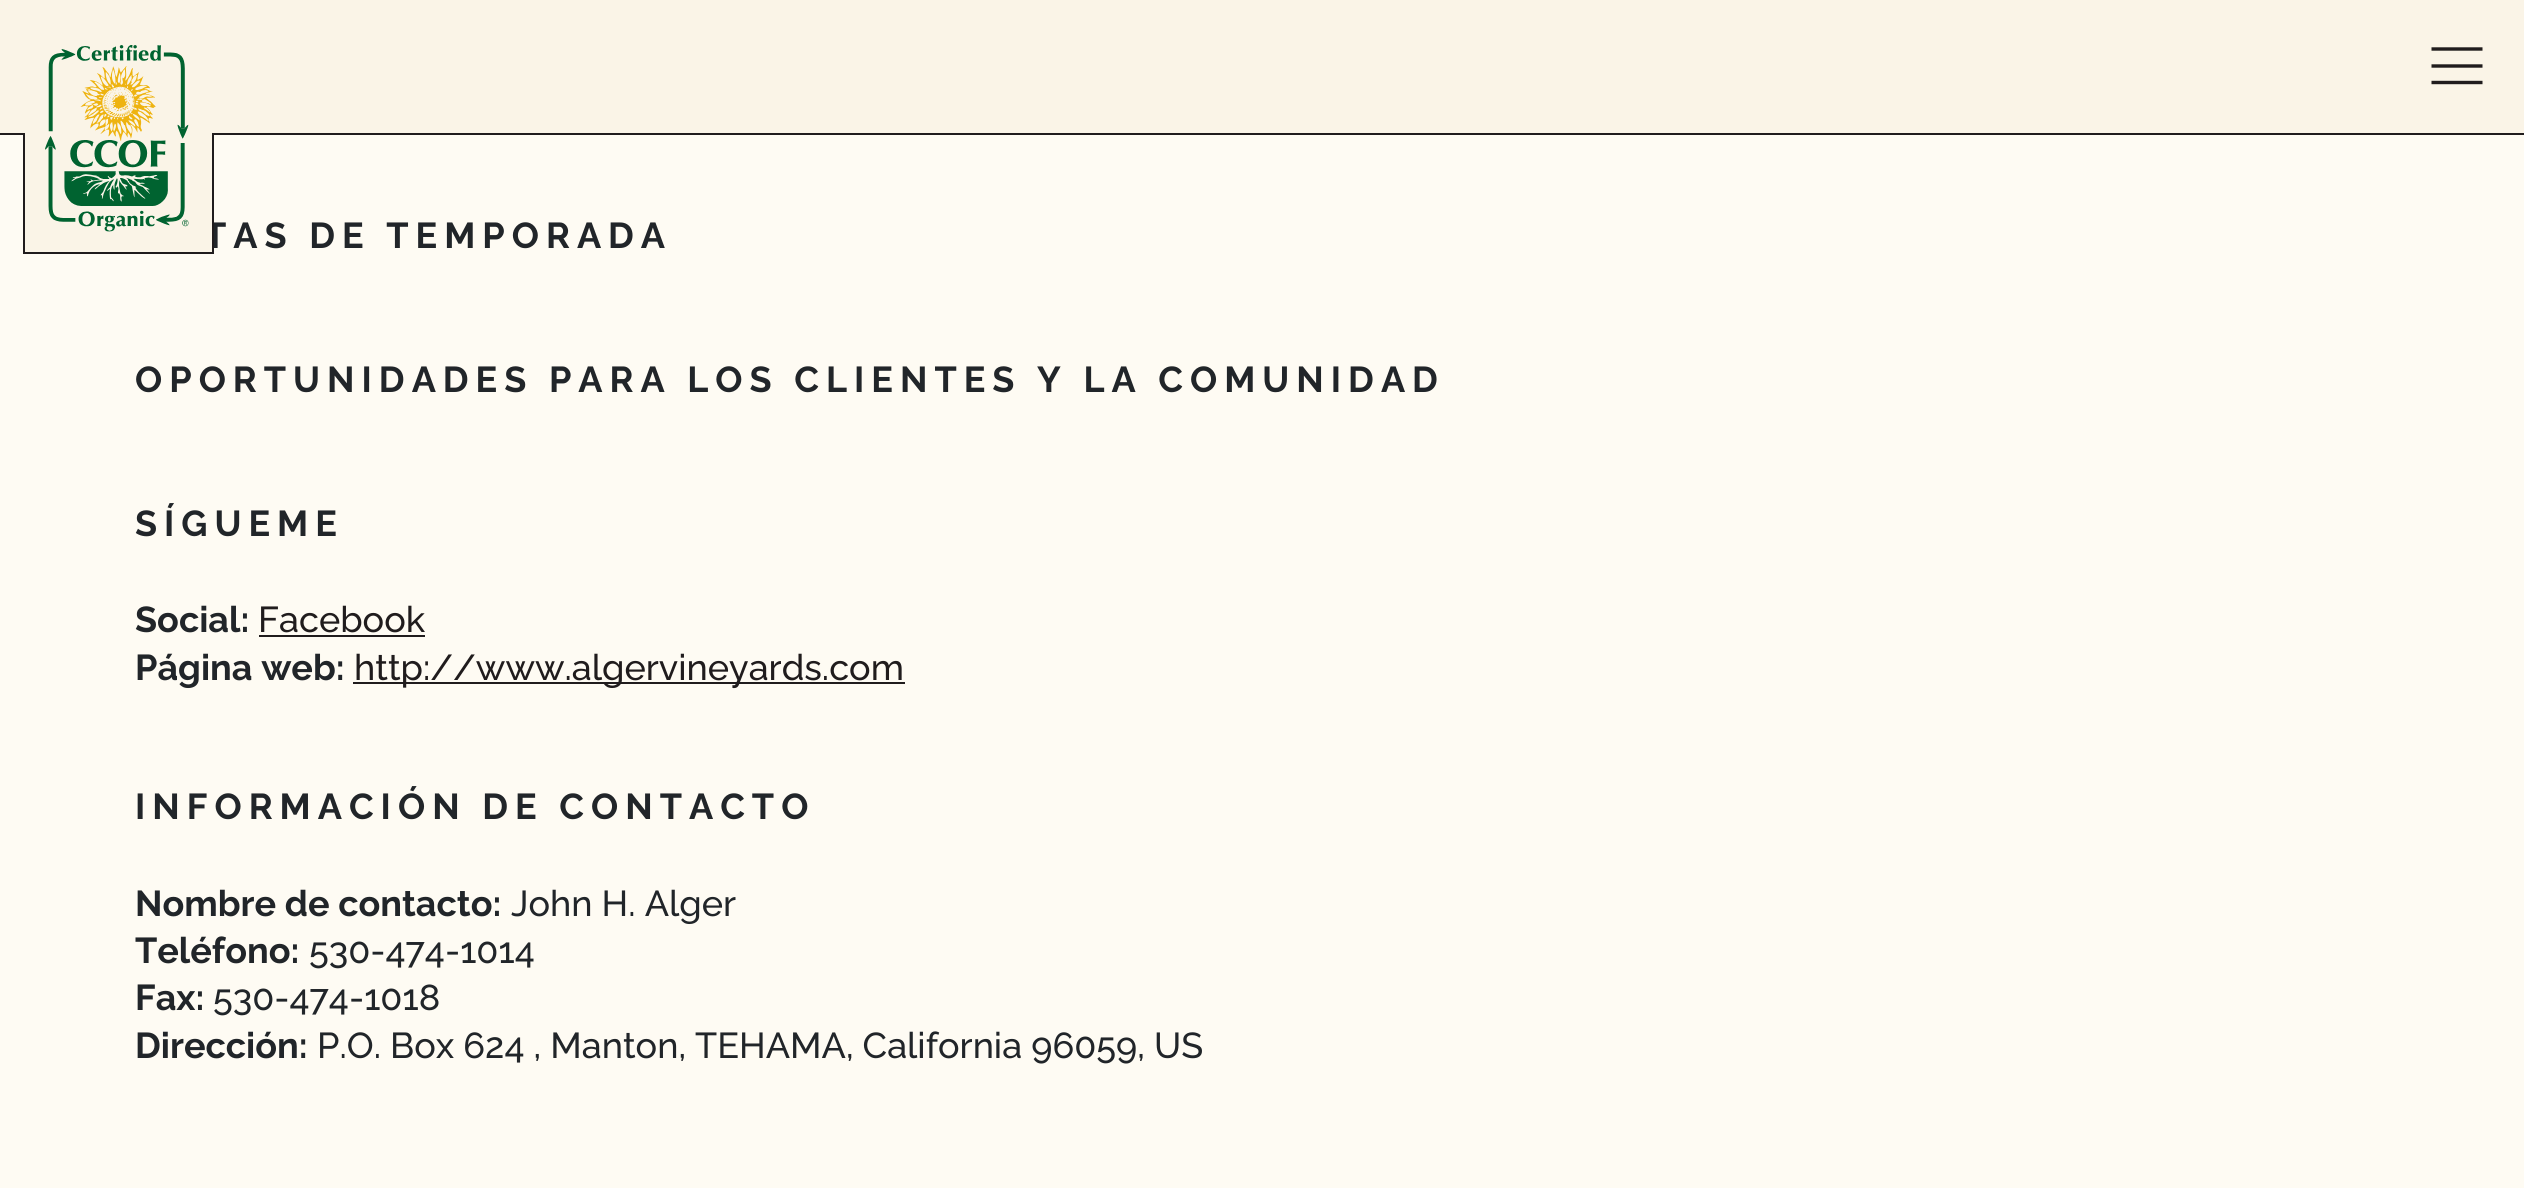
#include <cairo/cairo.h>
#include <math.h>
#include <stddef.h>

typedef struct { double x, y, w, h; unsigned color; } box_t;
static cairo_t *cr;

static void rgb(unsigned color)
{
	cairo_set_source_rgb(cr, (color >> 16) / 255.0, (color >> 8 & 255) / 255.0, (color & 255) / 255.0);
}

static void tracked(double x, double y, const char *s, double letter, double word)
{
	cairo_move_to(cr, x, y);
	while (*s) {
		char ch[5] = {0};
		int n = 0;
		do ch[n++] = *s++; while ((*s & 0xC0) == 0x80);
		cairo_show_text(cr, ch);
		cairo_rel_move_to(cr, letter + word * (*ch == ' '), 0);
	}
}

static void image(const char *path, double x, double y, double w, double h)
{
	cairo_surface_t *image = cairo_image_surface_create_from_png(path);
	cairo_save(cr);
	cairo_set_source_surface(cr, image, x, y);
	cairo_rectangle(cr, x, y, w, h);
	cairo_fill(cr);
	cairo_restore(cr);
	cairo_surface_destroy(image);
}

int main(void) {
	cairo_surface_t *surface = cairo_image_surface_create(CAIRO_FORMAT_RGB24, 2524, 1188);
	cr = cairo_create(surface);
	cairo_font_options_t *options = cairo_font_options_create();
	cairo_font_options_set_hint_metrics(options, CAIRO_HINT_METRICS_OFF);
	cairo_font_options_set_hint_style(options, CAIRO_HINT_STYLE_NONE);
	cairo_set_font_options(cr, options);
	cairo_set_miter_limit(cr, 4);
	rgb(0xfefbf3);
	cairo_paint(cr);
	rgb(0xfaf4e7);
	cairo_rectangle(cr, 0, 0, 2524, 133);
	cairo_fill(cr);
	rgb(0x201c1d);
	cairo_rectangle(cr, 0, 133, 2524, 2);
	cairo_fill(cr);
	cairo_new_path(cr);
	cairo_move_to(cr, 2431.5, 49);
	cairo_line_to(cr, 2482.5, 49);
	cairo_move_to(cr, 2431.5, 66);
	cairo_line_to(cr, 2482.5, 66);
	cairo_move_to(cr, 2431.5, 82.5);
	cairo_line_to(cr, 2482.5, 82.5);
	cairo_set_line_width(cr, 3.4);
	cairo_stroke(cr);
	cairo_rectangle(cr, 259, 635, 166, 2);
	cairo_fill(cr);
	cairo_rectangle(cr, 353, 682, 552, 2);
	cairo_fill(cr);
	cairo_select_font_face(cr, "Raleway", CAIRO_FONT_SLANT_NORMAL, CAIRO_FONT_WEIGHT_BOLD);
	cairo_set_font_size(cr, 36);
	rgb(0x212529);
	tracked(204, 248, "TAS DE TEMPORADA", 7, 0);
	{
		static const box_t items[] = {
			{212, 133, 2, 121, 0x201c1d},
			{23, 252, 191, 2, 0x201c1d},
			{23, 133, 189, 119, 0xfaf4e7},
			{23, 133, 2, 121, 0x201c1d},
		};
		for (size_t i = 0; i < sizeof items / sizeof *items; i++) {
			rgb(items[i].color);
			cairo_rectangle(cr, items[i].x, items[i].y, items[i].w, items[i].h);
			cairo_fill(cr);
		}
	}
	image("img/1.png", 45, 45, 144, 187);
	rgb(0x212529);
	tracked(135, 392, "OPORTUNIDADES PARA LOS CLIENTES Y LA COMUNIDAD", 7, 0);
	tracked(135, 536, "SÍGUEME", 7, 0);
	cairo_move_to(cr, 135, 632);
	cairo_show_text(cr, "Social:");
	cairo_select_font_face(cr, "Raleway Medium", CAIRO_FONT_SLANT_NORMAL, CAIRO_FONT_WEIGHT_NORMAL);
	rgb(0x201c1d);
	cairo_move_to(cr, 258, 632);
	cairo_show_text(cr, "Facebook");
	cairo_select_font_face(cr, "Raleway", CAIRO_FONT_SLANT_NORMAL, CAIRO_FONT_WEIGHT_BOLD);
	rgb(0x212529);
	cairo_move_to(cr, 135, 680);
	cairo_show_text(cr, "Página web:");
	cairo_select_font_face(cr, "Raleway Medium", CAIRO_FONT_SLANT_NORMAL, CAIRO_FONT_WEIGHT_NORMAL);
	rgb(0x201c1d);
	cairo_move_to(cr, 354, 680);
	cairo_show_text(cr, "http://www.algervineyards.com");
	cairo_select_font_face(cr, "Raleway", CAIRO_FONT_SLANT_NORMAL, CAIRO_FONT_WEIGHT_BOLD);
	rgb(0x212529);
	tracked(135, 819, "INFORMACIÓN DE CONTACTO", 7, 0);
	cairo_move_to(cr, 135, 916);
	cairo_show_text(cr, "Nombre de contacto:");
	cairo_select_font_face(cr, "Raleway Medium", CAIRO_FONT_SLANT_NORMAL, CAIRO_FONT_WEIGHT_NORMAL);
	cairo_move_to(cr, 511, 916);
	cairo_show_text(cr, "John H. Alger");
	cairo_select_font_face(cr, "Raleway", CAIRO_FONT_SLANT_NORMAL, CAIRO_FONT_WEIGHT_BOLD);
	cairo_move_to(cr, 135, 963);
	cairo_show_text(cr, "Teléfono:");
	cairo_select_font_face(cr, "Raleway Medium", CAIRO_FONT_SLANT_NORMAL, CAIRO_FONT_WEIGHT_NORMAL);
	cairo_move_to(cr, 309, 963);
	cairo_show_text(cr, "530-474-1014");
	cairo_select_font_face(cr, "Raleway", CAIRO_FONT_SLANT_NORMAL, CAIRO_FONT_WEIGHT_BOLD);
	cairo_move_to(cr, 135, 1010);
	cairo_show_text(cr, "Fax:");
	cairo_select_font_face(cr, "Raleway Medium", CAIRO_FONT_SLANT_NORMAL, CAIRO_FONT_WEIGHT_NORMAL);
	cairo_move_to(cr, 213, 1010);
	cairo_show_text(cr, "530-474-1018");
	cairo_select_font_face(cr, "Raleway", CAIRO_FONT_SLANT_NORMAL, CAIRO_FONT_WEIGHT_BOLD);
	cairo_move_to(cr, 135, 1058);
	cairo_show_text(cr, "Dirección:");
	cairo_select_font_face(cr, "Raleway Medium", CAIRO_FONT_SLANT_NORMAL, CAIRO_FONT_WEIGHT_NORMAL);
	cairo_move_to(cr, 317, 1058);
	cairo_show_text(cr, "P.O. Box 624 , Manton, TEHAMA, California 96059, US");
	cairo_surface_write_to_png(surface, "page.png");
	cairo_font_options_destroy(options);
	cairo_destroy(cr);
	cairo_surface_destroy(surface);
	return 0;
}
